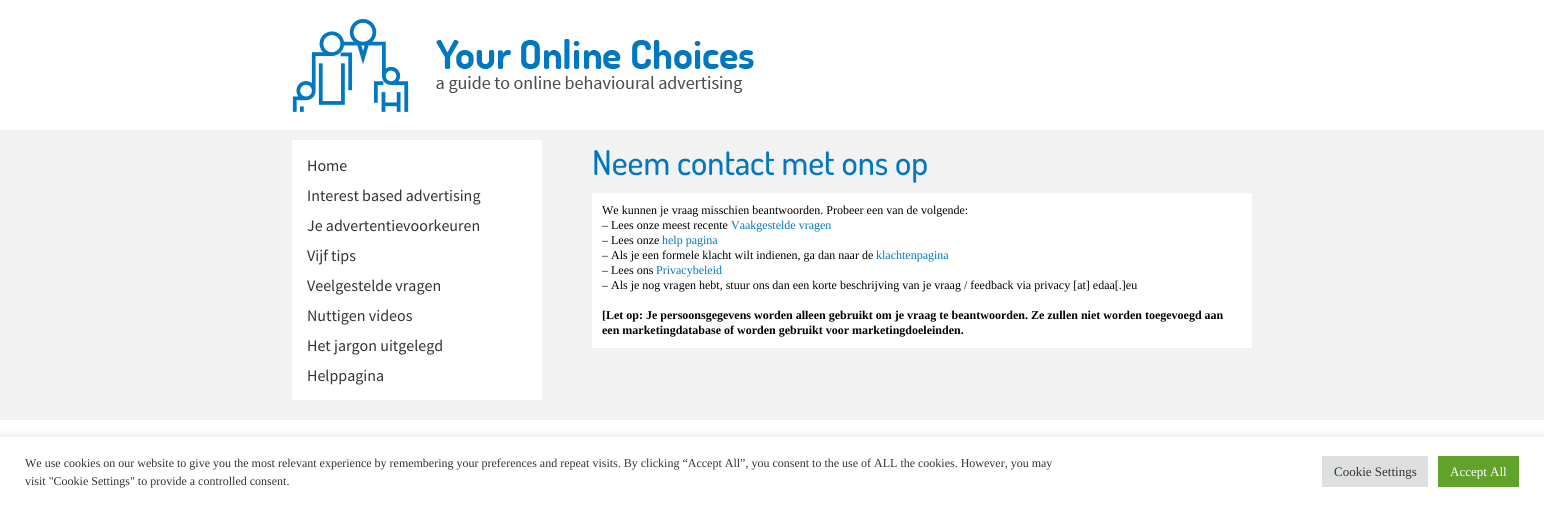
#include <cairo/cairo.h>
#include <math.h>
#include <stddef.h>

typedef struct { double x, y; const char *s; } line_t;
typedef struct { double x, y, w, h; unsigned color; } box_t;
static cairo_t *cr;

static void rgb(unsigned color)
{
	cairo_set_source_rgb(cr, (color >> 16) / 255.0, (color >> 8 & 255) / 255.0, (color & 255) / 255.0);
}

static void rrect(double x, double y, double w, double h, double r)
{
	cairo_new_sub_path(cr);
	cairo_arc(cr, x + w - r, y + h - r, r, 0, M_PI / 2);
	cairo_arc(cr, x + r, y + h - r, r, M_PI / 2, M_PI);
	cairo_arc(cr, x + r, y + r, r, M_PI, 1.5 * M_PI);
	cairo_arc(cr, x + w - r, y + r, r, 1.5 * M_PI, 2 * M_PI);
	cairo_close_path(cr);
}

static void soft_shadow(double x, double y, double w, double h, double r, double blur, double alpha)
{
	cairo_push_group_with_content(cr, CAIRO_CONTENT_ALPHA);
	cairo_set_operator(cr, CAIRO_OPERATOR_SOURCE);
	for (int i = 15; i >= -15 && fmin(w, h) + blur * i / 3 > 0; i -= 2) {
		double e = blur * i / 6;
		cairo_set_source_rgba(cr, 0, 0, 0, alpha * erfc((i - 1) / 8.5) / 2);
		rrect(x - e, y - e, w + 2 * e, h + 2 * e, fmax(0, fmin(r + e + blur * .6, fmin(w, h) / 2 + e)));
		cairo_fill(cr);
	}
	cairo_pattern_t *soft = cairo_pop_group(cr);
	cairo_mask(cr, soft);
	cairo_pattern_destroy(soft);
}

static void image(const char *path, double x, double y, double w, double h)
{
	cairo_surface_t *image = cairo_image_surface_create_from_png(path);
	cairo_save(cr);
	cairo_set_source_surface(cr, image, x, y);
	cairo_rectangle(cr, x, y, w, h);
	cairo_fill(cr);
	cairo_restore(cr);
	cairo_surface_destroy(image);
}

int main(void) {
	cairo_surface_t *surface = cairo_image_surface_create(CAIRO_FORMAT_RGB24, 1544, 506);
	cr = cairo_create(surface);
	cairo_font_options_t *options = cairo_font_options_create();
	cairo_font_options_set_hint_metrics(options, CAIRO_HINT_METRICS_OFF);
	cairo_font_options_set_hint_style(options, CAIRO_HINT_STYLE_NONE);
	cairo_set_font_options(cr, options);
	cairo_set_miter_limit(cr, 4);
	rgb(0xffffff);
	cairo_paint(cr);
	image("img/1.png", 292, 19, 462, 93);
	{
		static const box_t items[] = {
			{0, 130, 1544, 290, 0xf2f2f2},
			{292, 140, 250, 260, 0xffffff},
			{592, 193, 660, 155, 0xffffff},
		};
		for (size_t i = 0; i < sizeof items / sizeof *items; i++) {
			rgb(items[i].color);
			cairo_rectangle(cr, items[i].x, items[i].y, items[i].w, items[i].h);
			cairo_fill(cr);
		}
	}
	rgb(0xacabab);
	soft_shadow(0, 436, 1544, 69, 0, 5, 0.3);
	{
		static const box_t items[] = {
			{0, 437, 1544, 69, 0xffffff},
			{1322, 456, 106, 31, 0xdedfe0},
			{1438, 456, 81, 31, 0x61a229},
		};
		for (size_t i = 0; i < sizeof items / sizeof *items; i++) {
			rgb(items[i].color);
			cairo_rectangle(cr, items[i].x, items[i].y, items[i].w, items[i].h);
			cairo_fill(cr);
		}
	}
	cairo_select_font_face(cr, "Source Sans Pro", CAIRO_FONT_SLANT_NORMAL, CAIRO_FONT_WEIGHT_NORMAL);
	cairo_set_font_size(cr, 16);
	rgb(0x333333);
	{
		static const line_t items[] = {
			{307, 171, "Home"},
			{307, 201, "Interest based advertising"},
			{307, 231, "Je advertentievoorkeuren"},
			{307, 261, "Vijf tips"},
			{307, 291, "Veelgestelde vragen"},
			{307, 321, "Nuttigen videos"},
			{307, 351, "Het jargon uitgelegd"},
			{307, 381, "Helppagina"},
		};
		for (size_t i = 0; i < sizeof items / sizeof *items; i++) {
			cairo_move_to(cr, items[i].x, items[i].y);
			cairo_show_text(cr, items[i].s);
		}
	}
	cairo_select_font_face(cr, "Dosis Medium", CAIRO_FONT_SLANT_NORMAL, CAIRO_FONT_WEIGHT_NORMAL);
	cairo_set_font_size(cr, 34);
	rgb(0x0077c0);
	cairo_move_to(cr, 592, 175);
	cairo_show_text(cr, "Neem contact met ons op");
	cairo_select_font_face(cr, "Liberation Serif", CAIRO_FONT_SLANT_NORMAL, CAIRO_FONT_WEIGHT_NORMAL);
	cairo_set_font_size(cr, 12);
	rgb(0x000000);
	cairo_move_to(cr, 602, 214);
	cairo_show_text(cr, "We kunnen je vraag misschien beantwoorden. Probeer een van de volgende:");
	cairo_move_to(cr, 602, 229);
	cairo_show_text(cr, "– Lees onze meest recente");
	rgb(0x0077c0);
	cairo_move_to(cr, 731, 229);
	cairo_show_text(cr, "Vaakgestelde vragen");
	rgb(0x000000);
	cairo_move_to(cr, 602, 244);
	cairo_show_text(cr, "– Lees onze");
	rgb(0x0077c0);
	cairo_move_to(cr, 662, 244);
	cairo_show_text(cr, "help pagina");
	rgb(0x000000);
	cairo_move_to(cr, 602, 259);
	cairo_show_text(cr, "– Als je een formele klacht wilt indienen, ga dan naar de");
	rgb(0x0077c0);
	cairo_move_to(cr, 876, 259);
	cairo_show_text(cr, "klachtenpagina");
	rgb(0x000000);
	cairo_move_to(cr, 602, 274);
	cairo_show_text(cr, "– Lees ons");
	rgb(0x0077c0);
	cairo_move_to(cr, 656, 274);
	cairo_show_text(cr, "Privacybeleid");
	rgb(0x000000);
	cairo_move_to(cr, 602, 289);
	cairo_show_text(cr, "– Als je nog vragen hebt, stuur ons dan een korte beschrijving van je vraag / feedback via privacy [at] edaa[.]eu");
	cairo_select_font_face(cr, "Liberation Serif", CAIRO_FONT_SLANT_NORMAL, CAIRO_FONT_WEIGHT_BOLD);
	cairo_move_to(cr, 602, 319);
	cairo_show_text(cr, "[Let op: Je persoonsgegevens worden alleen gebruikt om je vraag te beantwoorden. Ze zullen niet worden toegevoegd aan");
	cairo_move_to(cr, 602, 334);
	cairo_show_text(cr, "een marketingdatabase of worden gebruikt voor marketingdoeleinden.");
	cairo_select_font_face(cr, "Liberation Serif", CAIRO_FONT_SLANT_NORMAL, CAIRO_FONT_WEIGHT_NORMAL);
	rgb(0x333333);
	cairo_move_to(cr, 25, 467);
	cairo_show_text(cr, "We use cookies on our website to give you the most relevant experience by remembering your preferences and repeat visits. By clicking “Accept All”, you consent to the use of ALL the cookies. However, you may");
	cairo_move_to(cr, 25, 485);
	cairo_show_text(cr, "visit \"Cookie Settings\" to provide a controlled consent.");
	cairo_set_font_size(cr, 13);
	cairo_move_to(cr, 1334, 476);
	cairo_show_text(cr, "Cookie Settings");
	rgb(0xffffff);
	cairo_move_to(cr, 1450, 476);
	cairo_show_text(cr, "Accept All");
	cairo_surface_write_to_png(surface, "page.png");
	cairo_font_options_destroy(options);
	cairo_destroy(cr);
	cairo_surface_destroy(surface);
	return 0;
}
